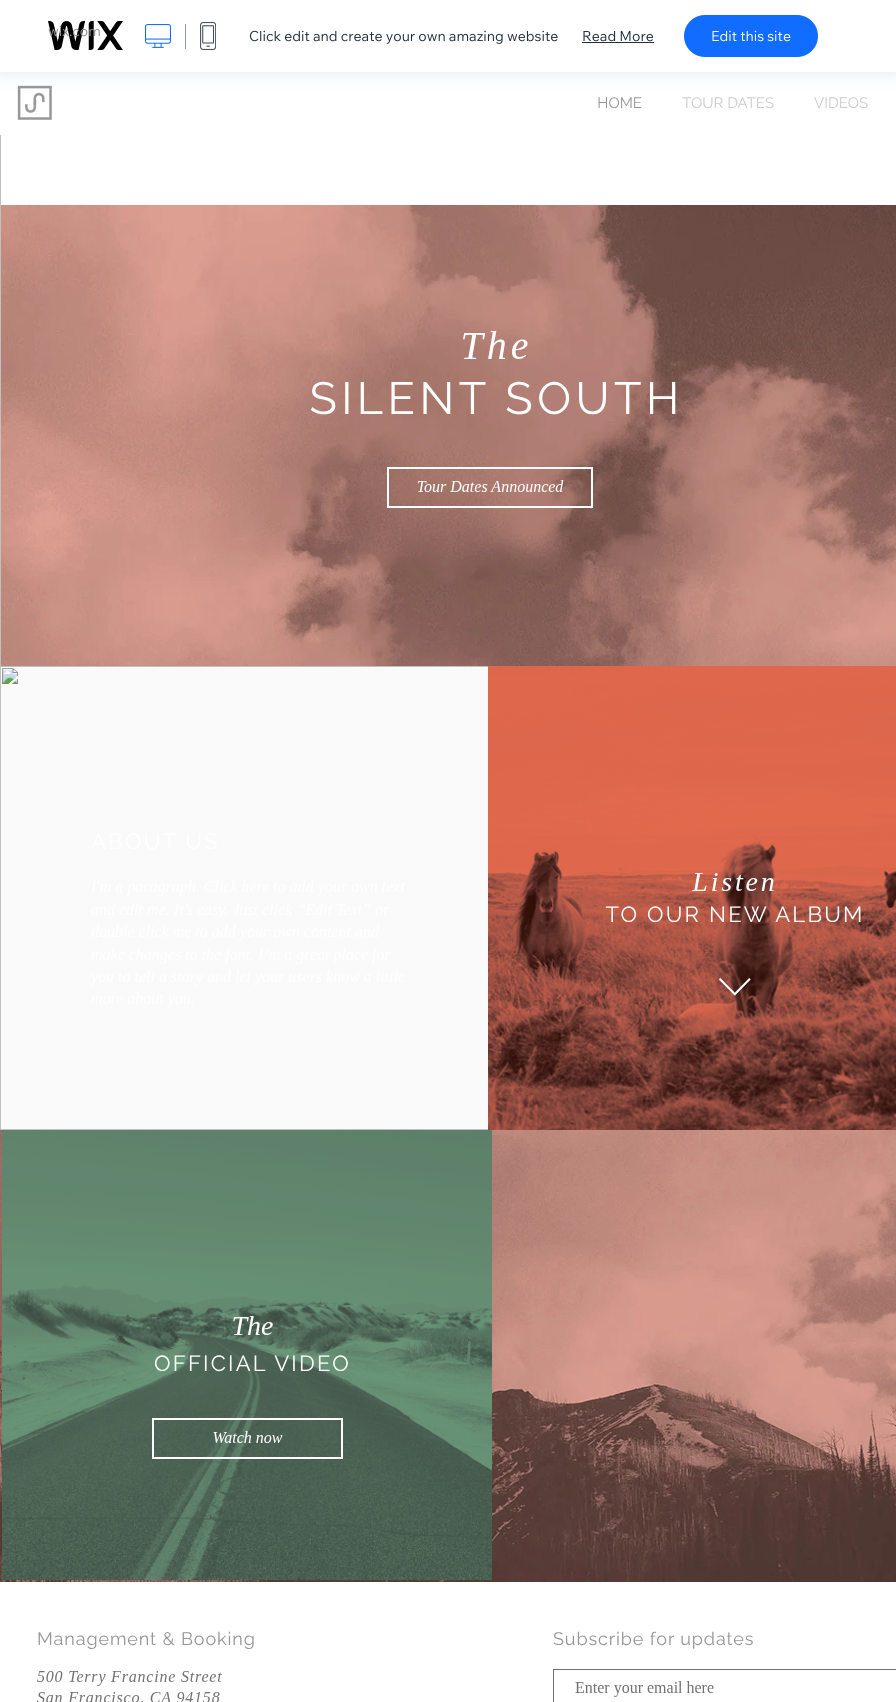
#include <cairo/cairo.h>
#include <math.h>
#include <stddef.h>

static cairo_t *cr;

static void rgb(unsigned color)
{
	cairo_set_source_rgb(cr, (color >> 16) / 255.0, (color >> 8 & 255) / 255.0, (color & 255) / 255.0);
}

static void rrect(double x, double y, double w, double h, double r)
{
	cairo_new_sub_path(cr);
	cairo_arc(cr, x + w - r, y + h - r, r, 0, M_PI / 2);
	cairo_arc(cr, x + r, y + h - r, r, M_PI / 2, M_PI);
	cairo_arc(cr, x + r, y + r, r, M_PI, 1.5 * M_PI);
	cairo_arc(cr, x + w - r, y + r, r, 1.5 * M_PI, 2 * M_PI);
	cairo_close_path(cr);
}

static void soft_shadow(double x, double y, double w, double h, double r, double blur, double alpha)
{
	cairo_push_group_with_content(cr, CAIRO_CONTENT_ALPHA);
	cairo_set_operator(cr, CAIRO_OPERATOR_SOURCE);
	for (int i = 15; i >= -15 && fmin(w, h) + blur * i / 3 > 0; i -= 2) {
		double e = blur * i / 6;
		cairo_set_source_rgba(cr, 0, 0, 0, alpha * erfc((i - 1) / 8.5) / 2);
		rrect(x - e, y - e, w + 2 * e, h + 2 * e, fmax(0, fmin(r + e + blur * .6, fmin(w, h) / 2 + e)));
		cairo_fill(cr);
	}
	cairo_pattern_t *soft = cairo_pop_group(cr);
	cairo_mask(cr, soft);
	cairo_pattern_destroy(soft);
}

static void image(const char *path, double x, double y, double w, double h)
{
	cairo_surface_t *image = cairo_image_surface_create_from_png(path);
	cairo_save(cr);
	cairo_set_source_surface(cr, image, x, y);
	cairo_rectangle(cr, x, y, w, h);
	cairo_fill(cr);
	cairo_restore(cr);
	cairo_surface_destroy(image);
}

int main(void) {
	cairo_surface_t *surface = cairo_image_surface_create(CAIRO_FORMAT_RGB24, 896, 1702);
	cr = cairo_create(surface);
	cairo_font_options_t *options = cairo_font_options_create();
	cairo_font_options_set_hint_metrics(options, CAIRO_HINT_METRICS_OFF);
	cairo_font_options_set_hint_style(options, CAIRO_HINT_STYLE_NONE);
	cairo_set_font_options(cr, options);
	cairo_set_miter_limit(cr, 4);
	rgb(0xffffff);
	cairo_paint(cr);
	image("img/4.png", 0, 72, 896, 1630);
	rgb(0x81a2b6);
	soft_shadow(0, 2, 896, 72, 0, 9, 0.2);
	rgb(0xffffff);
	cairo_rectangle(cr, 0, 0, 896, 72);
	cairo_fill(cr);
	image("img/1.png", 48, 21, 75, 29);
	image("img/2.png", 145, 24, 26, 24);
	rgb(0x90989e);
	cairo_rectangle(cr, 185, 24, 1, 25);
	cairo_fill(cr);
	image("img/3.png", 200, 22, 16, 28);
	rgb(0x20303c);
	cairo_rectangle(cr, 582, 42, 72, 1);
	cairo_fill(cr);
	rgb(0x116dff);
	rrect(684, 15, 134, 42, 21);
	cairo_fill(cr);
	cairo_select_font_face(cr, "Wix Madefor Text", CAIRO_FONT_SLANT_NORMAL, CAIRO_FONT_WEIGHT_NORMAL);
	cairo_set_font_size(cr, 14);
	rgb(0x8f8f8f);
	cairo_move_to(cr, 48, 36);
	cairo_show_text(cr, "wix.com");
	rgb(0x20303c);
	cairo_move_to(cr, 249, 41);
	cairo_show_text(cr, "Click edit and create your own amazing website");
	cairo_move_to(cr, 582, 41);
	cairo_show_text(cr, "Read More");
	rgb(0xffffff);
	cairo_move_to(cr, 711, 41);
	cairo_show_text(cr, "Edit this site");
	cairo_surface_write_to_png(surface, "page.png");
	cairo_font_options_destroy(options);
	cairo_destroy(cr);
	cairo_surface_destroy(surface);
	return 0;
}
